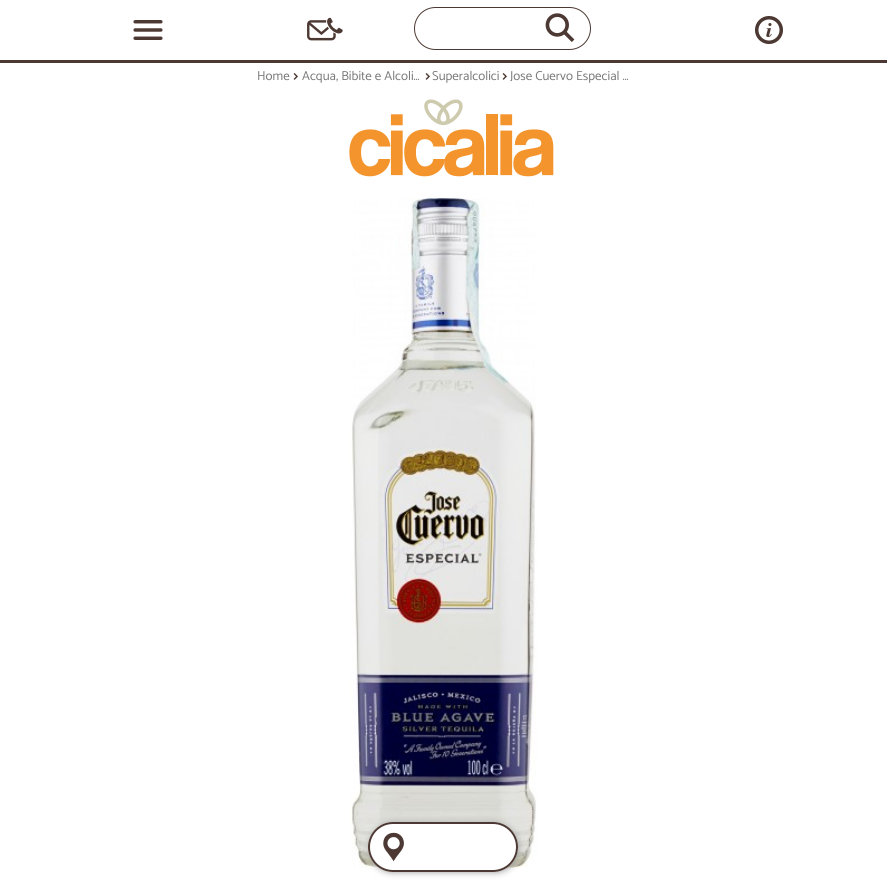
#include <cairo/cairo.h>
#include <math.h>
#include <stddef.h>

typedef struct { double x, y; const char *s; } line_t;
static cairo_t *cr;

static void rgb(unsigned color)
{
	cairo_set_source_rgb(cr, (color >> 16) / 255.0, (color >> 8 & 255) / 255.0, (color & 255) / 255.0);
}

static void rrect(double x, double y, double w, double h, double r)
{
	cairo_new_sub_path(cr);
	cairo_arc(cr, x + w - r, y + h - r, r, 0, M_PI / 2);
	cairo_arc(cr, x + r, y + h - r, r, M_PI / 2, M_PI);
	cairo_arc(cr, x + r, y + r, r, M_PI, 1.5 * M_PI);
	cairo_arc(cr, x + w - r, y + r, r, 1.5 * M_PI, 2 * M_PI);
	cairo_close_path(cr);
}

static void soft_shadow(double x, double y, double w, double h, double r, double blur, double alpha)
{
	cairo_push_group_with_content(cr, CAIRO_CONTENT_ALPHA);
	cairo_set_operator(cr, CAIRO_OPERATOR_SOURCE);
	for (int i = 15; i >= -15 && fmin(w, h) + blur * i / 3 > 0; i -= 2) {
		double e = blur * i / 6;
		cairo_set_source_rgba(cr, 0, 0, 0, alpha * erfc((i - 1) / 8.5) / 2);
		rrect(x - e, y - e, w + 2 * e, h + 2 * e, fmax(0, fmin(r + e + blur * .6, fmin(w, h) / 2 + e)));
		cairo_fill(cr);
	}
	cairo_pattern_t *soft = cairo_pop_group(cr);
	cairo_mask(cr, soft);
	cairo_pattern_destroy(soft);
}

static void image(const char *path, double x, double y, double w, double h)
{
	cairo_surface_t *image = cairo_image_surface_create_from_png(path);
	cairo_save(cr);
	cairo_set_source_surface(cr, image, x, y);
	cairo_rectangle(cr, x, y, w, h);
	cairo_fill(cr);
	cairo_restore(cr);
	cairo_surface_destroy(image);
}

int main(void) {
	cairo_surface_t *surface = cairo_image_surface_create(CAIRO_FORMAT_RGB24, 887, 885);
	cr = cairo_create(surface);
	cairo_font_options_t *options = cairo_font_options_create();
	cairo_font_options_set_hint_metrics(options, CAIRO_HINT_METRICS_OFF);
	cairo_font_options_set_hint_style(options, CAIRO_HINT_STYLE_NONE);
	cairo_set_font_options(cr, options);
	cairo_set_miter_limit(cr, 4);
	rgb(0xffffff);
	cairo_paint(cr);
	rgb(0x4d3933);
	cairo_rectangle(cr, 0, 60, 887, 3);
	cairo_fill(cr);
	image("img/1.png", 133, 20, 30, 20);
	image("img/2.png", 307, 17, 36, 24);
	rrect(414.5, 7.5, 176, 42, 21);
	cairo_set_line_width(cr, 1);
	cairo_stroke(cr);
	image("img/3.png", 545, 13, 30, 29);
	image("img/4.png", 755, 16, 28, 28);
	image("img/5.png", 293, 73, 5, 7);
	image("img/5.png", 425, 73, 5, 7);
	image("img/5.png", 502, 73, 5, 7);
	image("img/6.png", 349, 99, 205, 78);
	image("img/7.png", 350, 198, 187, 670);
	rgb(0x979797);
	soft_shadow(370, 824, 148, 48, 24, 3.5, 1);
	rgb(0xffffff);
	rrect(368, 822, 150, 50, 25);
	cairo_fill(cr);
	image("img/8.png", 383, 832, 21, 30);
	rrect(369, 823, 148, 48, 24);
	rgb(0x4d3933);
	cairo_set_line_width(cr, 2);
	cairo_stroke(cr);
	cairo_select_font_face(cr, "Catamaran Thin", CAIRO_FONT_SLANT_NORMAL, CAIRO_FONT_WEIGHT_NORMAL);
	cairo_set_font_size(cr, 13);
	rgb(0x777777);
	{
		static const line_t items[] = {
			{257, 80, "Home"},
			{302, 80, "Acqua, Bibite e Alcoli…"},
			{432, 80, "Superalcolici"},
			{510, 80, "Jose Cuervo Especial …"},
		};
		for (size_t i = 0; i < sizeof items / sizeof *items; i++) {
			cairo_move_to(cr, items[i].x, items[i].y);
			cairo_show_text(cr, items[i].s);
		}
	}
	cairo_surface_write_to_png(surface, "page.png");
	cairo_font_options_destroy(options);
	cairo_destroy(cr);
	cairo_surface_destroy(surface);
	return 0;
}
